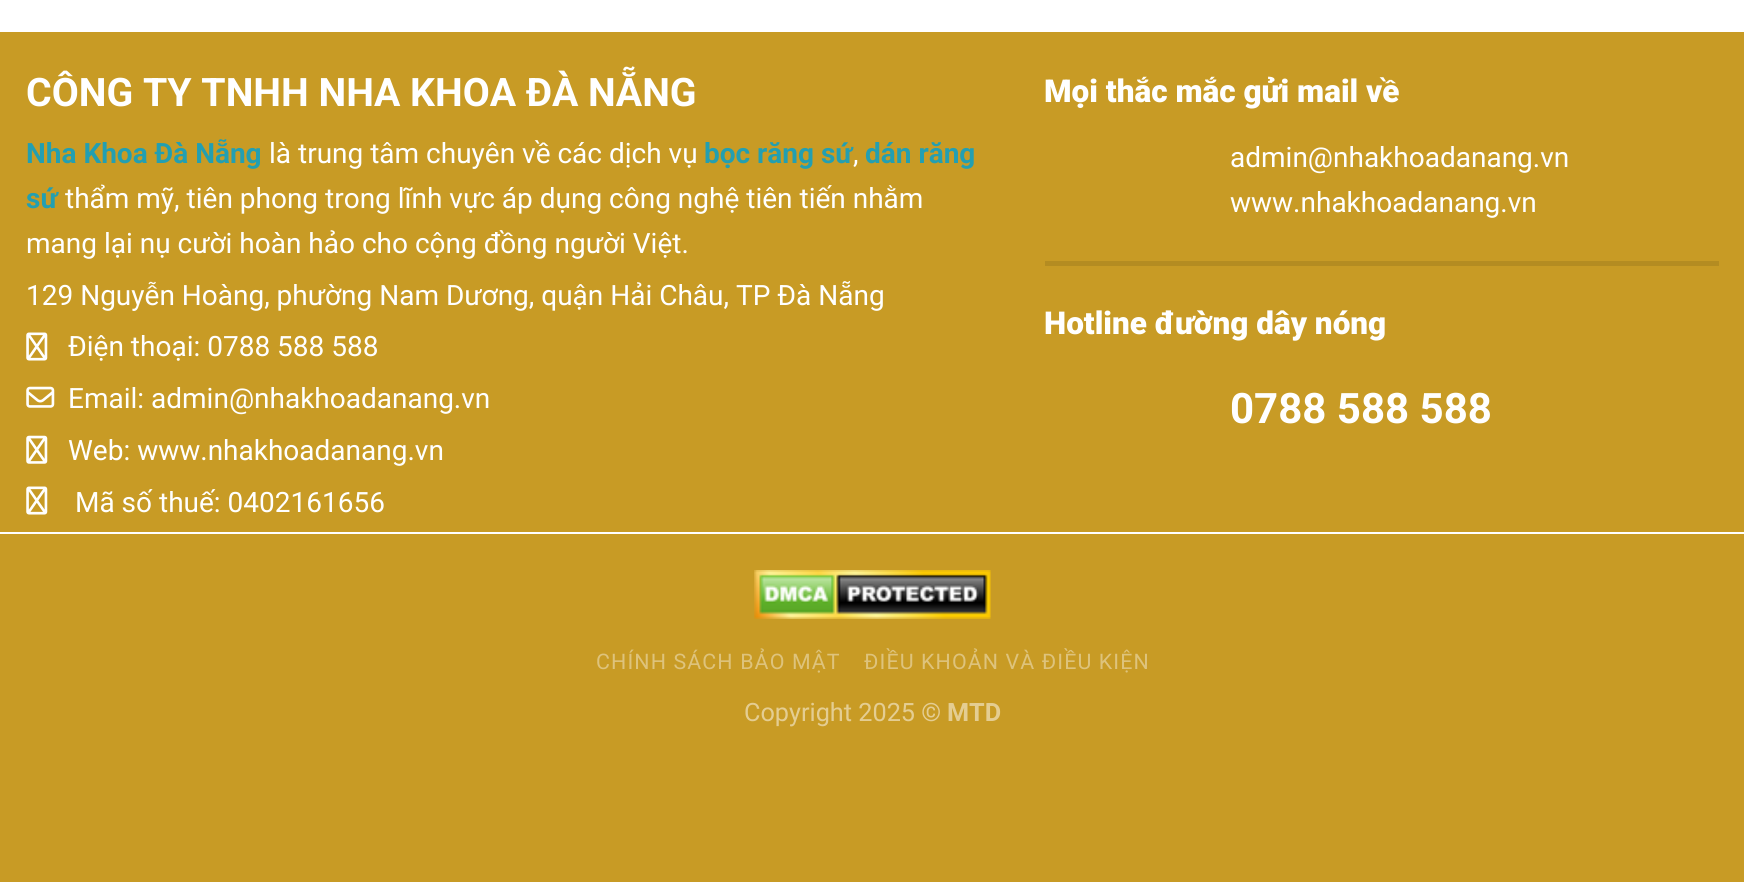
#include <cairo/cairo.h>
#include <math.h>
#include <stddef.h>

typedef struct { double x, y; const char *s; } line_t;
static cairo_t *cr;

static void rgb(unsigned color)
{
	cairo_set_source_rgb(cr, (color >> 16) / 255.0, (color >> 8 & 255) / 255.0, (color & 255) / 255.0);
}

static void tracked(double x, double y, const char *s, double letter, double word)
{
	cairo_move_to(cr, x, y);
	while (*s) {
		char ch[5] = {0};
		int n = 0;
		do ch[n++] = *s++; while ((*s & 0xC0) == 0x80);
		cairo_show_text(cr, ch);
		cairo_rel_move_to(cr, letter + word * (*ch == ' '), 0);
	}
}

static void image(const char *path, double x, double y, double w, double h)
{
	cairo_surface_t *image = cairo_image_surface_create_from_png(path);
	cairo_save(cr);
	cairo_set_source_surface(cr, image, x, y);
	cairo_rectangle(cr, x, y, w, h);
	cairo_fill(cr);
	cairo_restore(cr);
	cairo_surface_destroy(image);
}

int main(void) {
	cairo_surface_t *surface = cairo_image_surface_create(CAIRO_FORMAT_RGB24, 1744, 882);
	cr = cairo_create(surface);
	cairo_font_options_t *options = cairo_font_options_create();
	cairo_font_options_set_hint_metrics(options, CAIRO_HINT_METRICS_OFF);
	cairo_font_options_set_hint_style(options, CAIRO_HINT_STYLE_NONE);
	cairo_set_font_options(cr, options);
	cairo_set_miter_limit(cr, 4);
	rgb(0xc89b25);
	cairo_paint(cr);
	rgb(0xffffff);
	cairo_rectangle(cr, 0, 0, 1744, 32);
	cairo_fill(cr);
	image("img/1.png", 26, 332, 22, 29);
	image("img/2.png", 26, 386, 29, 22);
	image("img/3.png", 26, 435, 22, 29);
	image("img/1.png", 26, 486, 22, 29);
	rgb(0xb48c21);
	cairo_rectangle(cr, 1045, 261, 674, 5);
	cairo_fill(cr);
	rgb(0xffffff);
	cairo_rectangle(cr, 0, 532, 1744, 2);
	cairo_fill(cr);
	image("img/4.png", 754, 570, 237, 49);
	cairo_select_font_face(cr, "Roboto", CAIRO_FONT_SLANT_NORMAL, CAIRO_FONT_WEIGHT_BOLD);
	cairo_set_font_size(cr, 39.25);
	cairo_move_to(cr, 26, 106);
	cairo_show_text(cr, "CÔNG TY TNHH NHA KHOA ĐÀ NẴNG");
	cairo_set_font_size(cr, 28);
	rgb(0x239fb1);
	cairo_move_to(cr, 26, 163);
	cairo_show_text(cr, "Nha Khoa Đà Nẵng");
	cairo_select_font_face(cr, "Roboto", CAIRO_FONT_SLANT_NORMAL, CAIRO_FONT_WEIGHT_NORMAL);
	rgb(0xffffff);
	cairo_move_to(cr, 269, 163);
	cairo_show_text(cr, "là trung tâm chuyên về các dịch vụ");
	cairo_select_font_face(cr, "Roboto", CAIRO_FONT_SLANT_NORMAL, CAIRO_FONT_WEIGHT_BOLD);
	rgb(0x239fb1);
	cairo_move_to(cr, 704, 163);
	cairo_show_text(cr, "bọc răng sứ");
	cairo_select_font_face(cr, "Roboto", CAIRO_FONT_SLANT_NORMAL, CAIRO_FONT_WEIGHT_NORMAL);
	rgb(0xffffff);
	cairo_move_to(cr, 853, 163);
	cairo_show_text(cr, ",");
	cairo_select_font_face(cr, "Roboto", CAIRO_FONT_SLANT_NORMAL, CAIRO_FONT_WEIGHT_BOLD);
	rgb(0x239fb1);
	cairo_move_to(cr, 865, 163);
	cairo_show_text(cr, "dán răng");
	cairo_move_to(cr, 26, 208);
	cairo_show_text(cr, "sứ");
	cairo_select_font_face(cr, "Roboto", CAIRO_FONT_SLANT_NORMAL, CAIRO_FONT_WEIGHT_NORMAL);
	rgb(0xffffff);
	{
		static const line_t items[] = {
			{65, 208, "thẩm mỹ, tiên phong trong lĩnh vực áp dụng công nghệ tiên tiến nhằm"},
			{26, 253, "mang lại nụ cười hoàn hảo cho cộng đồng người Việt."},
			{26, 305, "129 Nguyễn Hoàng, phường Nam Dương, quận Hải Châu, TP Đà Nẵng"},
			{68, 356, "Điện thoại: 0788 588 588"},
			{68, 408, "Email: admin@nhakhoadanang.vn"},
			{68, 460, "Web: www.nhakhoadanang.vn"},
			{75, 512, "Mã số thuế: 0402161656"},
		};
		for (size_t i = 0; i < sizeof items / sizeof *items; i++) {
			cairo_move_to(cr, items[i].x, items[i].y);
			cairo_show_text(cr, items[i].s);
		}
	}
	cairo_select_font_face(cr, "Roboto Black", CAIRO_FONT_SLANT_NORMAL, CAIRO_FONT_WEIGHT_NORMAL);
	cairo_set_font_size(cr, 31.5);
	cairo_move_to(cr, 1044, 102);
	cairo_show_text(cr, "Mọi thắc mắc gửi mail về");
	cairo_select_font_face(cr, "Roboto", CAIRO_FONT_SLANT_NORMAL, CAIRO_FONT_WEIGHT_NORMAL);
	cairo_set_font_size(cr, 28);
	cairo_move_to(cr, 1230, 167);
	cairo_show_text(cr, "admin@nhakhoadanang.vn");
	cairo_move_to(cr, 1230, 212);
	cairo_show_text(cr, "www.nhakhoadanang.vn");
	cairo_select_font_face(cr, "Roboto Black", CAIRO_FONT_SLANT_NORMAL, CAIRO_FONT_WEIGHT_NORMAL);
	cairo_set_font_size(cr, 31.5);
	cairo_move_to(cr, 1044, 334);
	cairo_show_text(cr, "Hotline đường dây nóng");
	cairo_select_font_face(cr, "Roboto", CAIRO_FONT_SLANT_NORMAL, CAIRO_FONT_WEIGHT_BOLD);
	cairo_set_font_size(cr, 42);
	cairo_move_to(cr, 1230, 423);
	cairo_show_text(cr, "0788 588 588");
	cairo_select_font_face(cr, "Roboto", CAIRO_FONT_SLANT_NORMAL, CAIRO_FONT_WEIGHT_NORMAL);
	cairo_set_font_size(cr, 21.4);
	rgb(0xdec37c);
	tracked(596, 669, "CHÍNH SÁCH BẢO MẬT", 1.1, 0);
	tracked(864, 669, "ĐIỀU KHOẢN VÀ ĐIỀU KIỆN", 1.1, 0);
	cairo_set_font_size(cr, 25.25);
	rgb(0xe4cd92);
	cairo_move_to(cr, 744, 721);
	cairo_show_text(cr, "Copyright 2025 ©");
	cairo_select_font_face(cr, "Roboto", CAIRO_FONT_SLANT_NORMAL, CAIRO_FONT_WEIGHT_BOLD);
	cairo_move_to(cr, 947, 721);
	cairo_show_text(cr, "MTD");
	cairo_surface_write_to_png(surface, "page.png");
	cairo_font_options_destroy(options);
	cairo_destroy(cr);
	cairo_surface_destroy(surface);
	return 0;
}
